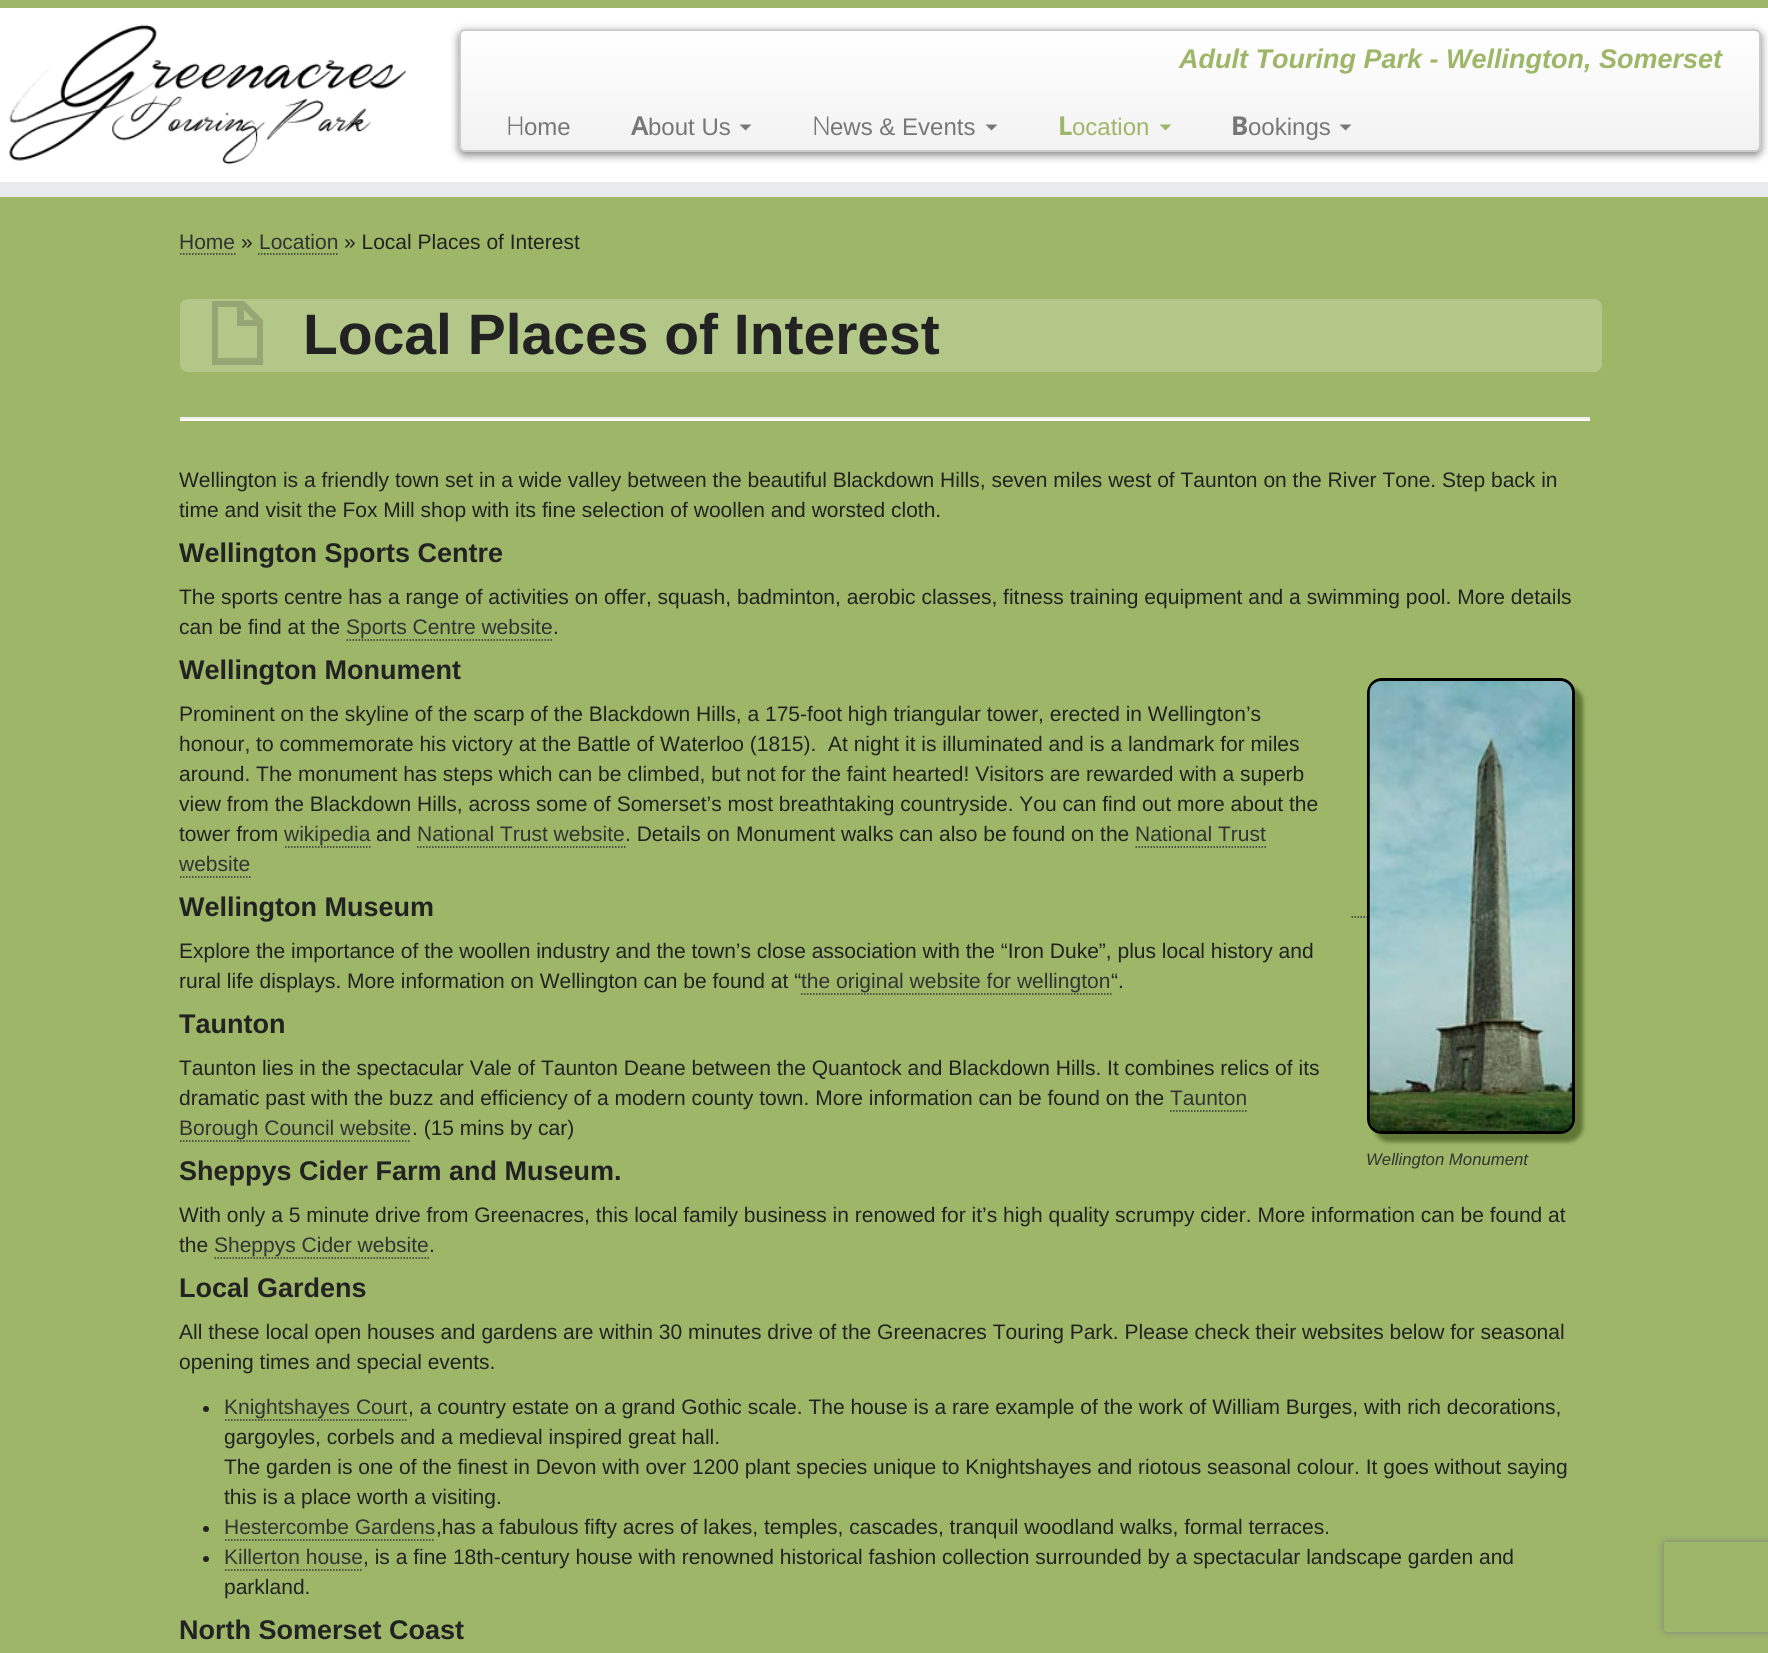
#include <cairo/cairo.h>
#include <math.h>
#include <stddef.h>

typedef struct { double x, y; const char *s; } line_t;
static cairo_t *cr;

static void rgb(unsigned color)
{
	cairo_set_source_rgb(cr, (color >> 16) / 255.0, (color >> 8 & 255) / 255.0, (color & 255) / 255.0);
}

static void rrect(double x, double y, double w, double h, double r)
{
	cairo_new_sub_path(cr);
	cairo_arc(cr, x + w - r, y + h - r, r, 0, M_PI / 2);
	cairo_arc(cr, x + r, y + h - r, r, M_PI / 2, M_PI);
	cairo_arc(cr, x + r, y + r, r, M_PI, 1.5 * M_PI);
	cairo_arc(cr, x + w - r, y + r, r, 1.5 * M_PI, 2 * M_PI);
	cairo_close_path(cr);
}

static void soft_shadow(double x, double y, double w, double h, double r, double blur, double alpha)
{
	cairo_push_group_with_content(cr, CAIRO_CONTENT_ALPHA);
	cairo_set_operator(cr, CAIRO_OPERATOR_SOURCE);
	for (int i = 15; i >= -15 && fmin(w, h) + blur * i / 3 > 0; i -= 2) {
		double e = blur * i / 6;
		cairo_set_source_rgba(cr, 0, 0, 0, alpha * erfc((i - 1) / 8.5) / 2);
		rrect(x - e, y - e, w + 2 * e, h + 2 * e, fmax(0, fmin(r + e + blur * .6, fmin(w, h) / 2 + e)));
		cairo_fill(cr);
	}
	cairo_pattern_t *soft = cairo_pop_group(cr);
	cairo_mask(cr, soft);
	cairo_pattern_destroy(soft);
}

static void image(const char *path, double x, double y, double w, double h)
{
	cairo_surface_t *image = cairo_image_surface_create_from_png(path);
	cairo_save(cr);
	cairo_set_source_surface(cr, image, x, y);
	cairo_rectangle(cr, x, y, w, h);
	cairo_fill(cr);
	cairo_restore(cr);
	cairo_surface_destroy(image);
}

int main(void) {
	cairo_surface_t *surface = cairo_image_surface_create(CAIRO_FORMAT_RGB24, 1768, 1653);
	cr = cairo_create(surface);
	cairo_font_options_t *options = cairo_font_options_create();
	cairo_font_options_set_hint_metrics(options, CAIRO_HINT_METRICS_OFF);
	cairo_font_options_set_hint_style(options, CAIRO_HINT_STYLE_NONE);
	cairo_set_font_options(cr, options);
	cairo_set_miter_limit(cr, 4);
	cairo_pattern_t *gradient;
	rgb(0x9db668);
	cairo_paint(cr);
	rgb(0xffffff);
	cairo_rectangle(cr, 0, 8, 1768, 174);
	cairo_fill(cr);
	rgb(0xe9eaee);
	cairo_rectangle(cr, 0, 182, 1768, 15);
	cairo_fill(cr);
	image("img/1.png", 9, 24, 397, 141);
	rgb(0x000000);
	soft_shadow(459, 32, 1302, 123, 6, 4.5, 0.5);
	cairo_save(cr);
	rrect(459, 29, 1302, 123, 6);
	cairo_clip(cr);
	gradient = cairo_pattern_create_linear(1110, 30, 1110, 150);
	cairo_pattern_add_color_stop_rgba(gradient, 0, 1, 1, 1, 1);
	cairo_pattern_add_color_stop_rgba(gradient, 1, 0.949, 0.949, 0.949, 1);
	cairo_set_source(cr, gradient);
	cairo_pattern_destroy(gradient);
	cairo_rectangle(cr, 459, 30, 1302, 120);
	cairo_fill(cr);
	cairo_restore(cr);
	rrect(460, 30, 1300, 121, 5);
	rgb(0xcccccc);
	cairo_stroke(cr);
	rgb(0x777777);
	cairo_new_path(cr);
	cairo_move_to(cr, 739.5, 124.5);
	cairo_line_to(cr, 751.5, 124.5);
	cairo_line_to(cr, 745.5, 130.5);
	cairo_close_path(cr);
	cairo_fill(cr);
	cairo_new_path(cr);
	cairo_move_to(cr, 985.5, 124.5);
	cairo_line_to(cr, 997.5, 124.5);
	cairo_line_to(cr, 991.5, 130.5);
	cairo_close_path(cr);
	cairo_fill(cr);
	rgb(0x9db668);
	cairo_new_path(cr);
	cairo_move_to(cr, 1159.5, 124.5);
	cairo_line_to(cr, 1171.5, 124.5);
	cairo_line_to(cr, 1165.5, 130.5);
	cairo_close_path(cr);
	cairo_fill(cr);
	rgb(0x777777);
	cairo_new_path(cr);
	cairo_move_to(cr, 1339.5, 124.5);
	cairo_line_to(cr, 1351.5, 124.5);
	cairo_line_to(cr, 1345.5, 130.5);
	cairo_close_path(cr);
	cairo_fill(cr);
	cairo_new_path(cr);
	cairo_move_to(cr, 180, 254);
	cairo_line_to(cr, 235.5, 254);
	rgb(0x333333);
	cairo_set_line_width(cr, 1.5);
	cairo_set_dash(cr, (double[]){1.5, 1.5}, 2, 0);
	cairo_stroke(cr);
	cairo_new_path(cr);
	cairo_move_to(cr, 258, 254);
	cairo_line_to(cr, 337.5, 254);
	cairo_stroke(cr);
	rgb(0xb3c789);
	rrect(181, 300, 1420, 71, 7);
	cairo_fill_preserve(cr);
	cairo_set_line_width(cr, 2);
	cairo_set_dash(cr, NULL, 0, 0);
	cairo_stroke(cr);
	rgb(0x96a674);
	cairo_new_path(cr);
	cairo_move_to(cr, 212, 365);
	cairo_line_to(cr, 212, 301);
	cairo_line_to(cr, 244, 301);
	cairo_line_to(cr, 263, 320);
	cairo_line_to(cr, 263, 365);
	cairo_close_path(cr);
	cairo_move_to(cr, 218, 358);
	cairo_line_to(cr, 257, 358);
	cairo_line_to(cr, 257, 326);
	cairo_line_to(cr, 237, 326);
	cairo_line_to(cr, 237, 307);
	cairo_line_to(cr, 218, 307);
	cairo_close_path(cr);
	cairo_move_to(cr, 244, 320);
	cairo_line_to(cr, 254, 320);
	cairo_line_to(cr, 244, 310);
	cairo_close_path(cr);
	cairo_fill(cr);
	rgb(0xeeeeee);
	cairo_rectangle(cr, 180, 417, 1410, 2);
	cairo_fill(cr);
	rgb(0xffffff);
	cairo_rectangle(cr, 180, 419, 1410, 2);
	cairo_fill(cr);
	cairo_new_path(cr);
	cairo_move_to(cr, 346.5, 640);
	cairo_line_to(cr, 553.5, 640);
	rgb(0x333333);
	cairo_set_line_width(cr, 1.5);
	cairo_set_dash(cr, (double[]){1.5, 1.5}, 2, 0);
	cairo_stroke(cr);
	cairo_new_path(cr);
	cairo_move_to(cr, 285, 847);
	cairo_line_to(cr, 370.5, 847);
	cairo_stroke(cr);
	cairo_new_path(cr);
	cairo_move_to(cr, 417, 847);
	cairo_line_to(cr, 625.5, 847);
	cairo_stroke(cr);
	cairo_new_path(cr);
	cairo_move_to(cr, 1135.5, 847);
	cairo_line_to(cr, 1266, 847);
	cairo_stroke(cr);
	cairo_new_path(cr);
	cairo_move_to(cr, 180, 877);
	cairo_line_to(cr, 250.5, 877);
	cairo_stroke(cr);
	cairo_new_path(cr);
	cairo_move_to(cr, 801, 994);
	cairo_line_to(cr, 1111.5, 994);
	cairo_stroke(cr);
	cairo_new_path(cr);
	cairo_move_to(cr, 1170, 1111);
	cairo_line_to(cr, 1248, 1111);
	cairo_stroke(cr);
	cairo_new_path(cr);
	cairo_move_to(cr, 180, 1141);
	cairo_line_to(cr, 411, 1141);
	cairo_stroke(cr);
	cairo_new_path(cr);
	cairo_move_to(cr, 1351.5, 917);
	cairo_line_to(cr, 1575, 917);
	cairo_stroke(cr);
	rgb(0x617737);
	soft_shadow(1374, 686, 209, 456, 15, 2, 1);
	rrect(1368.5, 679.5, 205, 453, 13.5);
	rgb(0x000000);
	cairo_set_line_width(cr, 3);
	cairo_set_dash(cr, NULL, 0, 0);
	cairo_stroke(cr);
	image("img/2.png", 1369, 681, 203, 450);
	cairo_new_path(cr);
	cairo_move_to(cr, 214.5, 1258);
	cairo_line_to(cr, 429, 1258);
	rgb(0x333333);
	cairo_set_line_width(cr, 1.5);
	cairo_set_dash(cr, (double[]){1.5, 1.5}, 2, 0);
	cairo_stroke(cr);
	rgb(0x222222);
	cairo_arc(cr, 206, 1409, 3, 0, 2 * M_PI);
	cairo_fill(cr);
	cairo_new_path(cr);
	cairo_move_to(cr, 225, 1420);
	cairo_line_to(cr, 408, 1420);
	rgb(0x333333);
	cairo_stroke(cr);
	rgb(0x222222);
	cairo_arc(cr, 206, 1529, 3, 0, 2 * M_PI);
	cairo_fill(cr);
	cairo_new_path(cr);
	cairo_move_to(cr, 225, 1540);
	cairo_line_to(cr, 435, 1540);
	rgb(0x333333);
	cairo_stroke(cr);
	rgb(0x222222);
	cairo_arc(cr, 206, 1559, 3, 0, 2 * M_PI);
	cairo_fill(cr);
	cairo_new_path(cr);
	cairo_move_to(cr, 225, 1570);
	cairo_line_to(cr, 363, 1570);
	rgb(0x333333);
	cairo_stroke(cr);
	cairo_save(cr);
	cairo_set_fill_rule(cr, CAIRO_FILL_RULE_EVEN_ODD);
	cairo_new_path(cr);
	cairo_move_to(cr, 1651, 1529);
	cairo_line_to(cr, 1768, 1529);
	cairo_line_to(cr, 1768, 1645);
	cairo_line_to(cr, 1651, 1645);
	cairo_close_path(cr);
	cairo_move_to(cr, 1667, 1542);
	cairo_line_to(cr, 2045, 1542);
	cairo_curve_to(cr, 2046.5, 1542, 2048, 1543.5, 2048, 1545);
	cairo_line_to(cr, 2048, 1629);
	cairo_curve_to(cr, 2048, 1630.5, 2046.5, 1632, 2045, 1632);
	cairo_line_to(cr, 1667, 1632);
	cairo_curve_to(cr, 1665.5, 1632, 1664, 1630.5, 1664, 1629);
	cairo_line_to(cr, 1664, 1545);
	cairo_curve_to(cr, 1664, 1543.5, 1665.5, 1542, 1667, 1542);
	cairo_close_path(cr);
	cairo_clip(cr);
	rgb(0x808080);
	soft_shadow(1664, 1542, 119, 90, 3, 4, 1);
	cairo_restore(cr);
	cairo_select_font_face(cr, "Liberation Sans", CAIRO_FONT_SLANT_ITALIC, CAIRO_FONT_WEIGHT_BOLD);
	cairo_set_font_size(cr, 27);
	rgb(0x9db668);
	cairo_move_to(cr, 1179, 68);
	cairo_show_text(cr, "Adult Touring Park - Wellington, Somerset");
	cairo_select_font_face(cr, "Noto Sans Light", CAIRO_FONT_SLANT_NORMAL, CAIRO_FONT_WEIGHT_NORMAL);
	cairo_set_font_size(cr, 26);
	rgb(0x777777);
	cairo_move_to(cr, 506, 135);
	cairo_show_text(cr, "H");
	cairo_select_font_face(cr, "Liberation Sans", CAIRO_FONT_SLANT_NORMAL, CAIRO_FONT_WEIGHT_NORMAL);
	cairo_set_font_size(cr, 24);
	cairo_move_to(cr, 524, 135);
	cairo_show_text(cr, "ome");
	cairo_select_font_face(cr, "Noto Sans SemiBold", CAIRO_FONT_SLANT_NORMAL, CAIRO_FONT_WEIGHT_NORMAL);
	cairo_set_font_size(cr, 26);
	cairo_move_to(cr, 631, 135);
	cairo_show_text(cr, "A");
	cairo_select_font_face(cr, "Liberation Sans", CAIRO_FONT_SLANT_NORMAL, CAIRO_FONT_WEIGHT_NORMAL);
	cairo_set_font_size(cr, 24);
	cairo_move_to(cr, 648, 135);
	cairo_show_text(cr, "bout Us");
	cairo_select_font_face(cr, "Noto Sans Light", CAIRO_FONT_SLANT_NORMAL, CAIRO_FONT_WEIGHT_NORMAL);
	cairo_set_font_size(cr, 26);
	cairo_move_to(cr, 812, 135);
	cairo_show_text(cr, "N");
	cairo_select_font_face(cr, "Liberation Sans", CAIRO_FONT_SLANT_NORMAL, CAIRO_FONT_WEIGHT_NORMAL);
	cairo_set_font_size(cr, 24);
	cairo_move_to(cr, 830, 135);
	cairo_show_text(cr, "ews & Events");
	cairo_select_font_face(cr, "Noto Sans", CAIRO_FONT_SLANT_NORMAL, CAIRO_FONT_WEIGHT_BOLD);
	cairo_set_font_size(cr, 26);
	rgb(0x9db668);
	cairo_move_to(cr, 1058, 135);
	cairo_show_text(cr, "L");
	cairo_select_font_face(cr, "Liberation Sans", CAIRO_FONT_SLANT_NORMAL, CAIRO_FONT_WEIGHT_NORMAL);
	cairo_set_font_size(cr, 24);
	cairo_move_to(cr, 1072, 135);
	cairo_show_text(cr, "ocation");
	cairo_select_font_face(cr, "Noto Sans", CAIRO_FONT_SLANT_NORMAL, CAIRO_FONT_WEIGHT_BOLD);
	cairo_set_font_size(cr, 26);
	rgb(0x777777);
	cairo_move_to(cr, 1231, 135);
	cairo_show_text(cr, "B");
	cairo_select_font_face(cr, "Liberation Sans", CAIRO_FONT_SLANT_NORMAL, CAIRO_FONT_WEIGHT_NORMAL);
	cairo_set_font_size(cr, 24);
	cairo_move_to(cr, 1248, 135);
	cairo_show_text(cr, "ookings");
	cairo_set_font_size(cr, 21);
	rgb(0x333333);
	cairo_move_to(cr, 179, 249);
	cairo_show_text(cr, "Home");
	rgb(0x222222);
	cairo_move_to(cr, 241, 249);
	cairo_show_text(cr, "»");
	rgb(0x333333);
	cairo_move_to(cr, 259, 249);
	cairo_show_text(cr, "Location");
	rgb(0x222222);
	cairo_move_to(cr, 344, 249);
	cairo_show_text(cr, "» Local Places of Interest");
	cairo_select_font_face(cr, "Liberation Sans", CAIRO_FONT_SLANT_NORMAL, CAIRO_FONT_WEIGHT_BOLD);
	cairo_set_font_size(cr, 57);
	cairo_move_to(cr, 303, 354);
	cairo_show_text(cr, "Local Places of Interest");
	cairo_select_font_face(cr, "Liberation Sans", CAIRO_FONT_SLANT_NORMAL, CAIRO_FONT_WEIGHT_NORMAL);
	cairo_set_font_size(cr, 21);
	cairo_move_to(cr, 179, 487);
	cairo_show_text(cr, "Wellington is a friendly town set in a wide valley between the beautiful Blackdown Hills, seven miles west of Taunton on the River Tone. Step back in");
	cairo_move_to(cr, 179, 517);
	cairo_show_text(cr, "time and visit the Fox Mill shop with its fine selection of woollen and worsted cloth.");
	cairo_select_font_face(cr, "Liberation Sans", CAIRO_FONT_SLANT_NORMAL, CAIRO_FONT_WEIGHT_BOLD);
	cairo_set_font_size(cr, 27);
	cairo_move_to(cr, 179, 562);
	cairo_show_text(cr, "Wellington Sports Centre");
	cairo_select_font_face(cr, "Liberation Sans", CAIRO_FONT_SLANT_NORMAL, CAIRO_FONT_WEIGHT_NORMAL);
	cairo_set_font_size(cr, 21);
	cairo_move_to(cr, 179, 604);
	cairo_show_text(cr, "The sports centre has a range of activities on offer, squash, badminton, aerobic classes, fitness training equipment and a swimming pool. More details");
	cairo_move_to(cr, 179, 634);
	cairo_show_text(cr, "can be find at the");
	rgb(0x333333);
	cairo_move_to(cr, 346, 634);
	cairo_show_text(cr, "Sports Centre website");
	rgb(0x222222);
	cairo_move_to(cr, 553, 634);
	cairo_show_text(cr, ".");
	cairo_select_font_face(cr, "Liberation Sans", CAIRO_FONT_SLANT_NORMAL, CAIRO_FONT_WEIGHT_BOLD);
	cairo_set_font_size(cr, 27);
	cairo_move_to(cr, 179, 679);
	cairo_show_text(cr, "Wellington Monument");
	cairo_select_font_face(cr, "Liberation Sans", CAIRO_FONT_SLANT_NORMAL, CAIRO_FONT_WEIGHT_NORMAL);
	cairo_set_font_size(cr, 21);
	{
		static const line_t items[] = {
			{179, 721, "Prominent on the skyline of the scarp of the Blackdown Hills, a 175-foot high triangular tower, erected in Wellington’s"},
			{179, 751, "honour, to commemorate his victory at the Battle of Waterloo (1815).  At night it is illuminated and is a landmark for miles"},
			{179, 781, "around. The monument has steps which can be climbed, but not for the faint hearted! Visitors are rewarded with a superb"},
			{179, 811, "view from the Blackdown Hills, across some of Somerset’s most breathtaking countryside. You can find out more about the"},
			{179, 841, "tower from"},
		};
		for (size_t i = 0; i < sizeof items / sizeof *items; i++) {
			cairo_move_to(cr, items[i].x, items[i].y);
			cairo_show_text(cr, items[i].s);
		}
	}
	rgb(0x333333);
	cairo_move_to(cr, 284, 841);
	cairo_show_text(cr, "wikipedia");
	rgb(0x222222);
	cairo_move_to(cr, 376, 841);
	cairo_show_text(cr, "and");
	rgb(0x333333);
	cairo_move_to(cr, 417, 841);
	cairo_show_text(cr, "National Trust website");
	rgb(0x222222);
	cairo_move_to(cr, 625, 841);
	cairo_show_text(cr, ". Details on Monument walks can also be found on the");
	rgb(0x333333);
	cairo_move_to(cr, 1135, 841);
	cairo_show_text(cr, "National Trust");
	cairo_move_to(cr, 179, 871);
	cairo_show_text(cr, "website");
	cairo_select_font_face(cr, "Liberation Sans", CAIRO_FONT_SLANT_NORMAL, CAIRO_FONT_WEIGHT_BOLD);
	cairo_set_font_size(cr, 27);
	rgb(0x222222);
	cairo_move_to(cr, 179, 916);
	cairo_show_text(cr, "Wellington Museum");
	cairo_select_font_face(cr, "Liberation Sans", CAIRO_FONT_SLANT_NORMAL, CAIRO_FONT_WEIGHT_NORMAL);
	cairo_set_font_size(cr, 21);
	cairo_move_to(cr, 179, 958);
	cairo_show_text(cr, "Explore the importance of the woollen industry and the town’s close association with the “Iron Duke”, plus local history and");
	cairo_move_to(cr, 179, 988);
	cairo_show_text(cr, "rural life displays. More information on Wellington can be found at “");
	rgb(0x333333);
	cairo_move_to(cr, 801, 988);
	cairo_show_text(cr, "the original website for wellington");
	rgb(0x222222);
	cairo_move_to(cr, 1111, 988);
	cairo_show_text(cr, "“.");
	cairo_select_font_face(cr, "Liberation Sans", CAIRO_FONT_SLANT_NORMAL, CAIRO_FONT_WEIGHT_BOLD);
	cairo_set_font_size(cr, 27);
	cairo_move_to(cr, 179, 1033);
	cairo_show_text(cr, "Taunton");
	cairo_select_font_face(cr, "Liberation Sans", CAIRO_FONT_SLANT_NORMAL, CAIRO_FONT_WEIGHT_NORMAL);
	cairo_set_font_size(cr, 21);
	cairo_move_to(cr, 179, 1075);
	cairo_show_text(cr, "Taunton lies in the spectacular Vale of Taunton Deane between the Quantock and Blackdown Hills. It combines relics of its");
	cairo_move_to(cr, 179, 1105);
	cairo_show_text(cr, "dramatic past with the buzz and efficiency of a modern county town. More information can be found on the");
	rgb(0x333333);
	cairo_move_to(cr, 1170, 1105);
	cairo_show_text(cr, "Taunton");
	cairo_move_to(cr, 179, 1135);
	cairo_show_text(cr, "Borough Council website");
	rgb(0x222222);
	cairo_move_to(cr, 412, 1135);
	cairo_show_text(cr, ". (15 mins by car)");
	cairo_select_font_face(cr, "Liberation Sans", CAIRO_FONT_SLANT_NORMAL, CAIRO_FONT_WEIGHT_BOLD);
	cairo_set_font_size(cr, 27);
	cairo_move_to(cr, 179, 1180);
	cairo_show_text(cr, "Sheppys Cider Farm and Museum.");
	cairo_select_font_face(cr, "Liberation Sans", CAIRO_FONT_SLANT_ITALIC, CAIRO_FONT_WEIGHT_NORMAL);
	cairo_set_font_size(cr, 16.75);
	rgb(0x333333);
	cairo_move_to(cr, 1366, 1165);
	cairo_show_text(cr, "Wellington Monument");
	cairo_select_font_face(cr, "Liberation Sans", CAIRO_FONT_SLANT_NORMAL, CAIRO_FONT_WEIGHT_NORMAL);
	cairo_set_font_size(cr, 21);
	rgb(0x222222);
	cairo_move_to(cr, 179, 1222);
	cairo_show_text(cr, "With only a 5 minute drive from Greenacres, this local family business in renowed for it’s high quality scrumpy cider. More information can be found at");
	cairo_move_to(cr, 179, 1252);
	cairo_show_text(cr, "the");
	rgb(0x333333);
	cairo_move_to(cr, 214, 1252);
	cairo_show_text(cr, "Sheppys Cider website");
	rgb(0x222222);
	cairo_move_to(cr, 429, 1252);
	cairo_show_text(cr, ".");
	cairo_select_font_face(cr, "Liberation Sans", CAIRO_FONT_SLANT_NORMAL, CAIRO_FONT_WEIGHT_BOLD);
	cairo_set_font_size(cr, 27);
	cairo_move_to(cr, 179, 1297);
	cairo_show_text(cr, "Local Gardens");
	cairo_select_font_face(cr, "Liberation Sans", CAIRO_FONT_SLANT_NORMAL, CAIRO_FONT_WEIGHT_NORMAL);
	cairo_set_font_size(cr, 21);
	cairo_move_to(cr, 179, 1339);
	cairo_show_text(cr, "All these local open houses and gardens are within 30 minutes drive of the Greenacres Touring Park. Please check their websites below for seasonal");
	cairo_move_to(cr, 179, 1369);
	cairo_show_text(cr, "opening times and special events.");
	rgb(0x333333);
	cairo_move_to(cr, 224, 1414);
	cairo_show_text(cr, "Knightshayes Court");
	rgb(0x222222);
	{
		static const line_t items[] = {
			{408, 1414, ", a country estate on a grand Gothic scale. The house is a rare example of the work of William Burges, with rich decorations,"},
			{224, 1444, "gargoyles, corbels and a medieval inspired great hall."},
			{224, 1474, "The garden is one of the finest in Devon with over 1200 plant species unique to Knightshayes and riotous seasonal colour. It goes without saying"},
			{224, 1504, "this is a place worth a visiting."},
		};
		for (size_t i = 0; i < sizeof items / sizeof *items; i++) {
			cairo_move_to(cr, items[i].x, items[i].y);
			cairo_show_text(cr, items[i].s);
		}
	}
	rgb(0x333333);
	cairo_move_to(cr, 224, 1534);
	cairo_show_text(cr, "Hestercombe Gardens");
	rgb(0x222222);
	cairo_move_to(cr, 436, 1534);
	cairo_show_text(cr, ",has a fabulous fifty acres of lakes, temples, cascades, tranquil woodland walks, formal terraces.");
	rgb(0x333333);
	cairo_move_to(cr, 224, 1564);
	cairo_show_text(cr, "Killerton house");
	rgb(0x222222);
	cairo_move_to(cr, 363, 1564);
	cairo_show_text(cr, ", is a fine 18th-century house with renowned historical fashion collection surrounded by a spectacular landscape garden and");
	cairo_move_to(cr, 224, 1594);
	cairo_show_text(cr, "parkland.");
	cairo_select_font_face(cr, "Liberation Sans", CAIRO_FONT_SLANT_NORMAL, CAIRO_FONT_WEIGHT_BOLD);
	cairo_set_font_size(cr, 27);
	cairo_move_to(cr, 179, 1639);
	cairo_show_text(cr, "North Somerset Coast");
	cairo_surface_write_to_png(surface, "page.png");
	cairo_font_options_destroy(options);
	cairo_destroy(cr);
	cairo_surface_destroy(surface);
	return 0;
}
